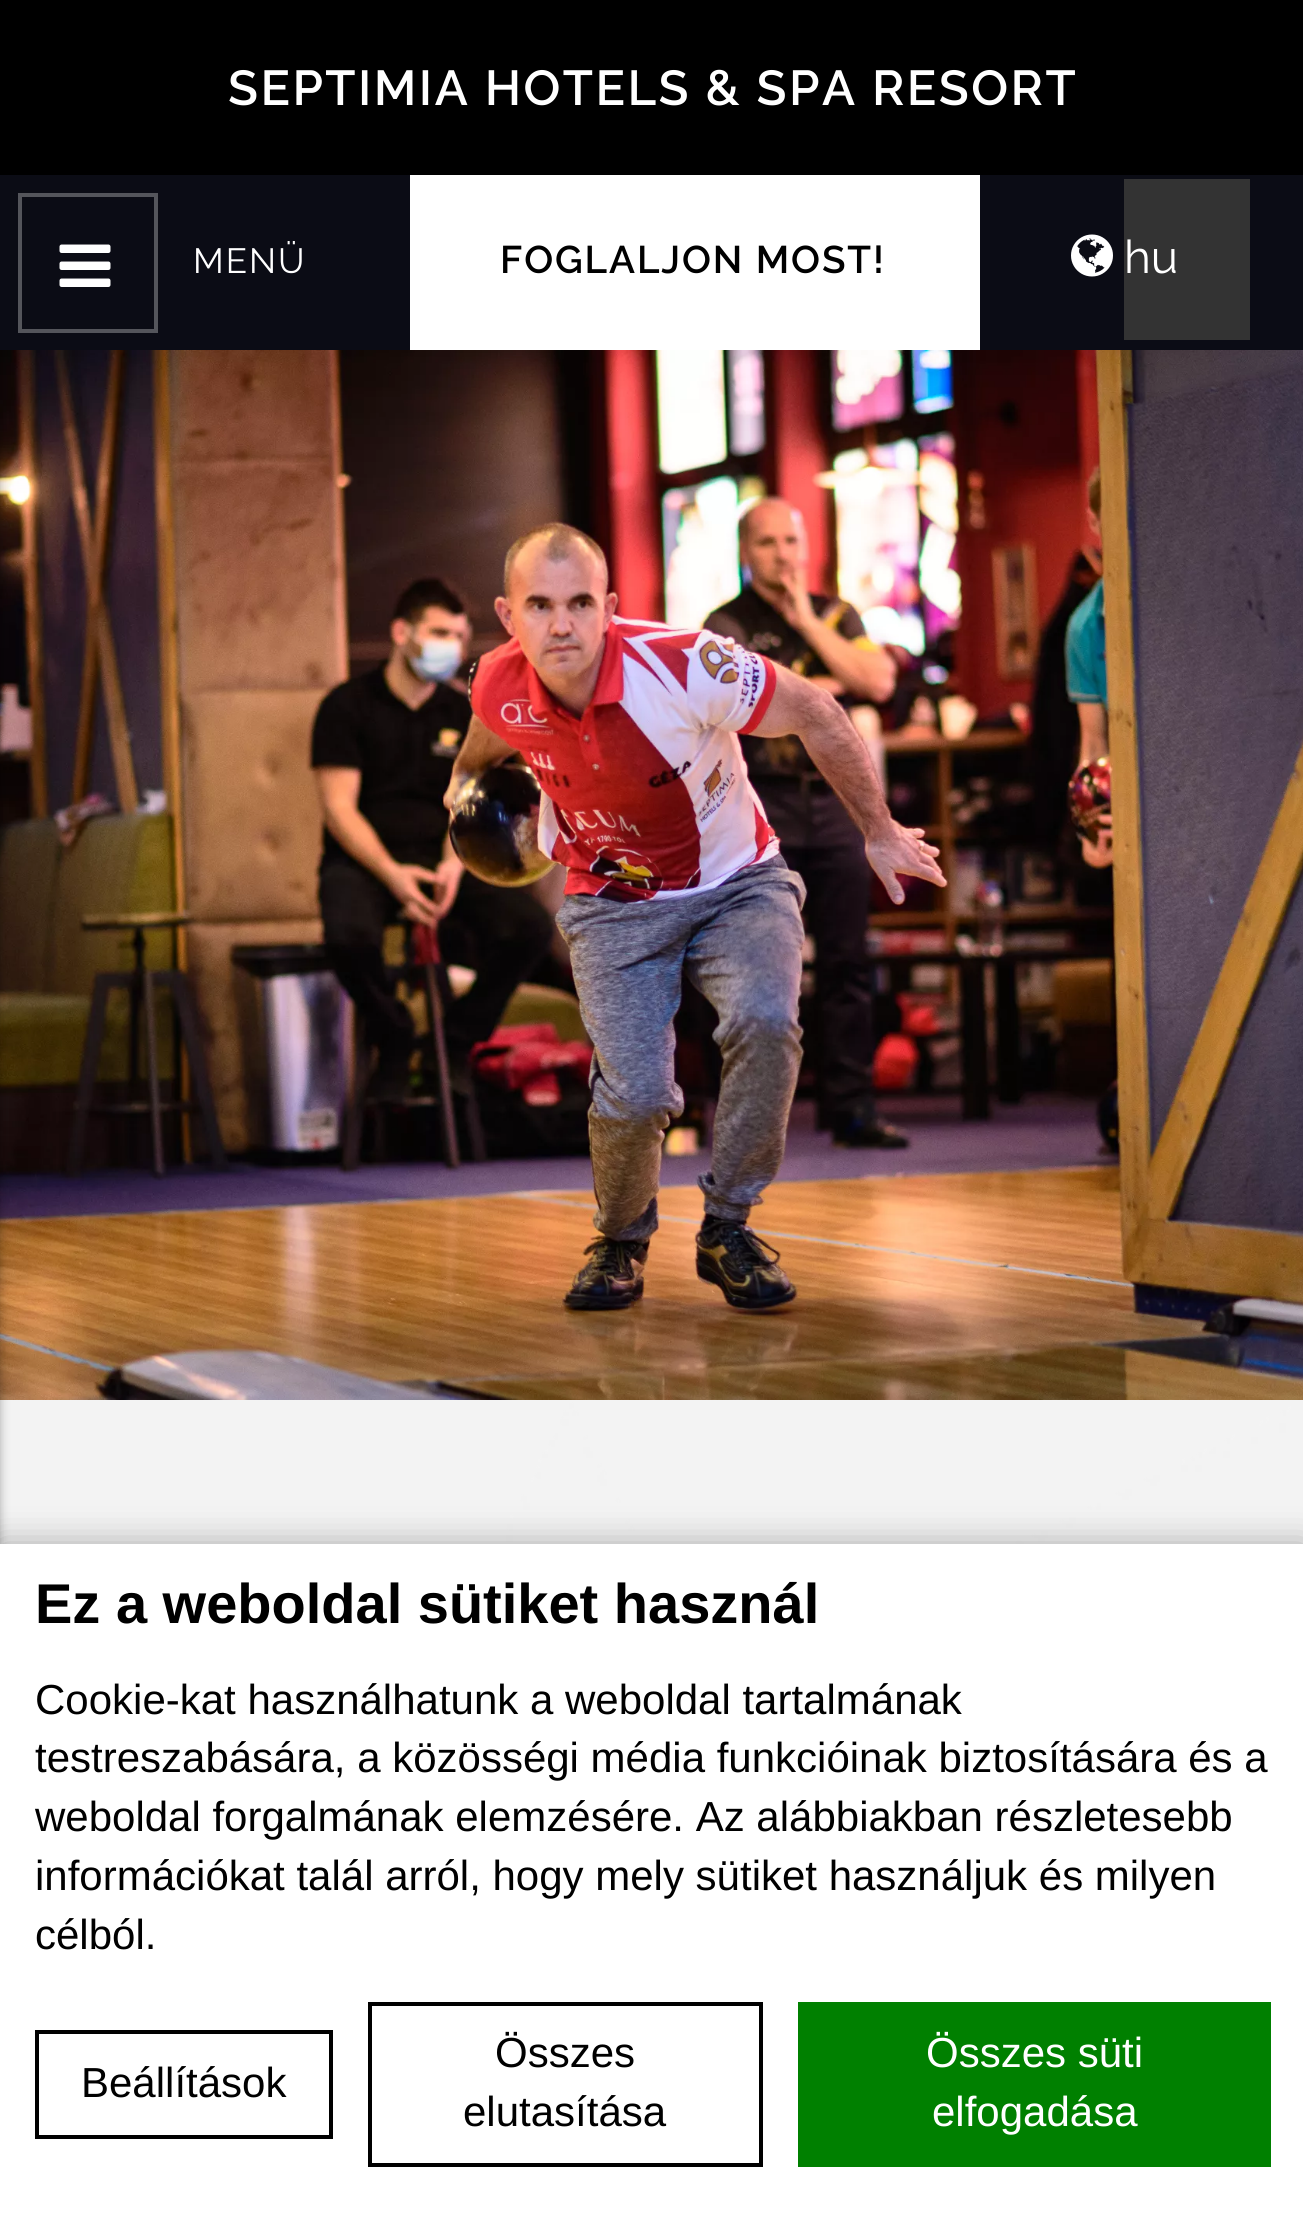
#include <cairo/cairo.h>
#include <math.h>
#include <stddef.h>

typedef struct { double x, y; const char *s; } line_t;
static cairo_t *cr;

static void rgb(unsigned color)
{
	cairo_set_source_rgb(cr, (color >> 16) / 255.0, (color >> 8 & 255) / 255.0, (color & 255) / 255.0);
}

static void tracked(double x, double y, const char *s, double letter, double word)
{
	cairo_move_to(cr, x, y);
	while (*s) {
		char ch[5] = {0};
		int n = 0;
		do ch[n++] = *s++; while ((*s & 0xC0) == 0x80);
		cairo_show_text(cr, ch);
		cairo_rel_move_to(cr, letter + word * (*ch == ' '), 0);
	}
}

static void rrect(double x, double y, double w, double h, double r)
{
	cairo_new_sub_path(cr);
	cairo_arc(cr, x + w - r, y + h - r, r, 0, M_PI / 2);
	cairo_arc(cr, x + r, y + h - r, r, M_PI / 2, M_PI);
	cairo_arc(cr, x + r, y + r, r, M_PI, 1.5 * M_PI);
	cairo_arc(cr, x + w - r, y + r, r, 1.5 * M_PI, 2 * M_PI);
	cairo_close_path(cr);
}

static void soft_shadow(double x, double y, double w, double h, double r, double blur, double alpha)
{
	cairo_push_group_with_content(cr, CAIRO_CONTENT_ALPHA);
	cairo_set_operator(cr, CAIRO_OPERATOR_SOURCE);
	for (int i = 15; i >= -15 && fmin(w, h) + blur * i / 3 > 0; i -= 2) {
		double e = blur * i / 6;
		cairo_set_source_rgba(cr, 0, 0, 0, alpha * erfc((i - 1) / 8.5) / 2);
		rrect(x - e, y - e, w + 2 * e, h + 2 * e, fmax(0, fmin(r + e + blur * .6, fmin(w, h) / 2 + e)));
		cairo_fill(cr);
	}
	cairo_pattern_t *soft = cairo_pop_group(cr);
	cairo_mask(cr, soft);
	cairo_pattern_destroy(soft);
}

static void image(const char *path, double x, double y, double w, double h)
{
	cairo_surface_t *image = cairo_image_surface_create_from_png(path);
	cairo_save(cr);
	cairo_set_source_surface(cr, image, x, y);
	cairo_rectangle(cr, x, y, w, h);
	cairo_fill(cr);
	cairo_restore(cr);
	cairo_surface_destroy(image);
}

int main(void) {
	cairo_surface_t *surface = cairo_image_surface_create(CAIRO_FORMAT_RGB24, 1303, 2217);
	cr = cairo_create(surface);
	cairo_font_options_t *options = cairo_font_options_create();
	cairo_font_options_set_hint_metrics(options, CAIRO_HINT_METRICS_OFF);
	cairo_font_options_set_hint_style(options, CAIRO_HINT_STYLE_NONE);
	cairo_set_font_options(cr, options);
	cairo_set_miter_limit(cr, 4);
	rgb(0xffffff);
	cairo_paint(cr);
	image("img/1.png", 0, 350, 1303, 1050);
	image("img/2.png", 0, 1400, 1303, 144);
	rgb(0x000000);
	soft_shadow(-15, 0, 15, 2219, 0, 5, 0.3);
	rgb(0x0b0c15);
	cairo_rectangle(cr, 0, 175, 1303, 175);
	cairo_fill(cr);
	rgb(0x000000);
	cairo_rectangle(cr, 0, 0, 1303, 175);
	cairo_fill(cr);
	cairo_rectangle(cr, 20, 195, 136, 136);
	rgb(0x54555b);
	cairo_set_line_width(cr, 4);
	cairo_stroke(cr);
	image("img/3.png", 59, 244, 52, 43);
	rgb(0xffffff);
	cairo_rectangle(cr, 410, 175, 570, 175);
	cairo_fill(cr);
	image("img/4.png", 1071, 234, 42, 43);
	rgb(0x333333);
	cairo_rectangle(cr, 1124, 179, 126, 161);
	cairo_fill(cr);
	rgb(0x000000);
	soft_shadow(0, 1544, 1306, 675, 0, 17.5, 0.3);
	rgb(0xffffff);
	cairo_rectangle(cr, 0, 1544, 1303, 673);
	cairo_fill(cr);
	cairo_rectangle(cr, 37, 2032, 294, 105);
	rgb(0x000000);
	cairo_stroke(cr);
	cairo_rectangle(cr, 370, 2004, 391, 161);
	cairo_stroke(cr);
	rgb(0x008000);
	cairo_rectangle(cr, 798, 2002, 473, 165);
	cairo_fill(cr);
	cairo_select_font_face(cr, "Raleway SemiBold", CAIRO_FONT_SLANT_NORMAL, CAIRO_FONT_WEIGHT_NORMAL);
	cairo_set_font_size(cr, 49);
	rgb(0xffffff);
	tracked(228, 105, "SEPTIMIA HOTELS & SPA RESORT", 2.45, 0);
	cairo_select_font_face(cr, "Raleway", CAIRO_FONT_SLANT_NORMAL, CAIRO_FONT_WEIGHT_NORMAL);
	cairo_set_font_size(cr, 35);
	tracked(193, 273, "MENÜ", 2, 0);
	cairo_select_font_face(cr, "Raleway SemiBold", CAIRO_FONT_SLANT_NORMAL, CAIRO_FONT_WEIGHT_NORMAL);
	cairo_set_font_size(cr, 38.5);
	rgb(0x000000);
	tracked(500, 273, "FOGLALJON MOST!", 1.9, 0);
	cairo_select_font_face(cr, "Raleway", CAIRO_FONT_SLANT_NORMAL, CAIRO_FONT_WEIGHT_NORMAL);
	cairo_set_font_size(cr, 46);
	rgb(0xffffff);
	cairo_move_to(cr, 1124, 273);
	cairo_show_text(cr, "hu");
	cairo_select_font_face(cr, "Liberation Sans", CAIRO_FONT_SLANT_NORMAL, CAIRO_FONT_WEIGHT_BOLD);
	cairo_set_font_size(cr, 56);
	rgb(0x000000);
	cairo_move_to(cr, 35, 1623);
	cairo_show_text(cr, "Ez a weboldal sütiket használ");
	cairo_select_font_face(cr, "Liberation Sans", CAIRO_FONT_SLANT_NORMAL, CAIRO_FONT_WEIGHT_NORMAL);
	cairo_set_font_size(cr, 42);
	{
		static const line_t items[] = {
			{35, 1714, "Cookie-kat használhatunk a weboldal tartalmának"},
			{35, 1772, "testreszabására, a közösségi média funkcióinak biztosítására és a"},
			{35, 1831, "weboldal forgalmának elemzésére. Az alábbiakban részletesebb"},
			{35, 1890, "információkat talál arról, hogy mely sütiket használjuk és milyen"},
			{35, 1949, "célból."},
			{81, 2097, "Beállítások"},
			{495, 2067, "Összes"},
			{463, 2126, "elutasítása"},
		};
		for (size_t i = 0; i < sizeof items / sizeof *items; i++) {
			cairo_move_to(cr, items[i].x, items[i].y);
			cairo_show_text(cr, items[i].s);
		}
	}
	rgb(0xffffff);
	cairo_move_to(cr, 926, 2067);
	cairo_show_text(cr, "Összes süti");
	cairo_move_to(cr, 932, 2126);
	cairo_show_text(cr, "elfogadása");
	cairo_surface_write_to_png(surface, "page.png");
	cairo_font_options_destroy(options);
	cairo_destroy(cr);
	cairo_surface_destroy(surface);
	return 0;
}
